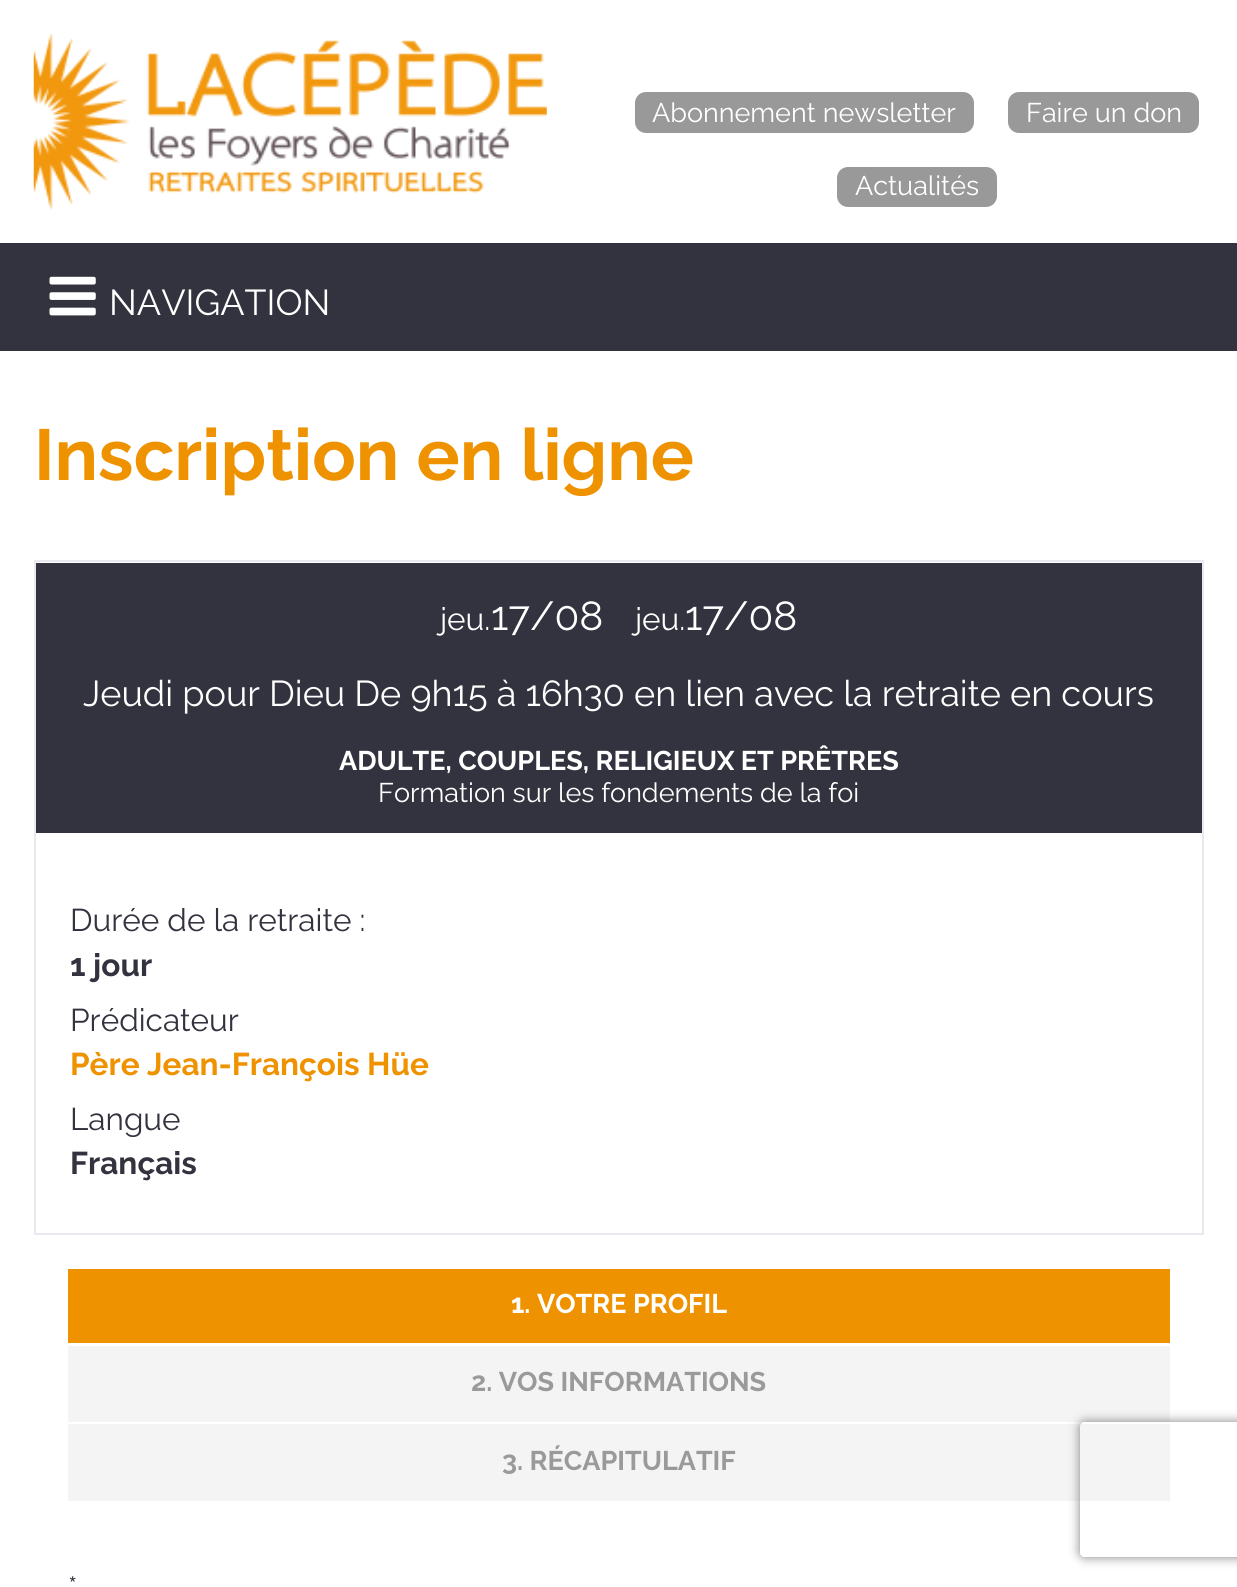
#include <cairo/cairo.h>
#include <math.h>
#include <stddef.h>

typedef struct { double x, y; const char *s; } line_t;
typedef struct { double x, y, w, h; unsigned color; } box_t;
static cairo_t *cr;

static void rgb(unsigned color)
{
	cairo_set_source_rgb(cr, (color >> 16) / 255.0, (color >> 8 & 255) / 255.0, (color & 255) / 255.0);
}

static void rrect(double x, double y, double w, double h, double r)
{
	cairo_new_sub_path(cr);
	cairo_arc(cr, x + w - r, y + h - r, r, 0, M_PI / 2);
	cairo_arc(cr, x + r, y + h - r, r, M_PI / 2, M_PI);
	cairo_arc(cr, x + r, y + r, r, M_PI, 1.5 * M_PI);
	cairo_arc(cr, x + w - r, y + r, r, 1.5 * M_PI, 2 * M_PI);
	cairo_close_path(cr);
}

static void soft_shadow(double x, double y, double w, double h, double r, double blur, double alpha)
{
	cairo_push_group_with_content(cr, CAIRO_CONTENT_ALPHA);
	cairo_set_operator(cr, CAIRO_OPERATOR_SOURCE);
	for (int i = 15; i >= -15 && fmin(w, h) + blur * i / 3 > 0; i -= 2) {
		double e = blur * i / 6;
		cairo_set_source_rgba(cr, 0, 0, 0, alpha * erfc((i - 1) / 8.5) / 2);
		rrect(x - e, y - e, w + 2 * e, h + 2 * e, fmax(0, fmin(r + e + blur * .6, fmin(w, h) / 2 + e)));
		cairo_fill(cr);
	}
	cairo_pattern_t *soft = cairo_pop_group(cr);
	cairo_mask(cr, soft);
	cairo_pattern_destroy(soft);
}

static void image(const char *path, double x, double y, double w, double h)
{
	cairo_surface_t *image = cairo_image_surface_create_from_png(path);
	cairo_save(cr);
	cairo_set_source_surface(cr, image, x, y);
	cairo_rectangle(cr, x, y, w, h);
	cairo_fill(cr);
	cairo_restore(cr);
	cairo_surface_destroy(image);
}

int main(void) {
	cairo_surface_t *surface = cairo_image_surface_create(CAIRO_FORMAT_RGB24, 1237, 1587);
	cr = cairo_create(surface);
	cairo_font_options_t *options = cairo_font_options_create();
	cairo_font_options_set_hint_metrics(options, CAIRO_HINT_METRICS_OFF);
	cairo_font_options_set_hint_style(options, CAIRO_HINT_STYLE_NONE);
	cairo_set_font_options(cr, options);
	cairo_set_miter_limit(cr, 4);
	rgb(0xffffff);
	cairo_paint(cr);
	image("img/1.png", 33, 33, 514, 177);
	rgb(0x999999);
	rrect(635, 92, 339, 41, 11);
	cairo_fill(cr);
	rrect(1008, 92, 191, 41, 11);
	cairo_fill(cr);
	rrect(837, 167, 160, 40, 11);
	cairo_fill(cr);
	rgb(0x33333f);
	cairo_rectangle(cr, 0, 243, 1237, 108);
	cairo_fill(cr);
	image("img/2.png", 49, 276, 47, 40);
	cairo_rectangle(cr, 35, 561, 1168, 673);
	rgb(0xe9e9ef);
	cairo_stroke(cr);
	{
		static const box_t items[] = {
			{36, 563, 1166, 270, 0x33333f},
			{68, 1269, 1102, 74, 0xef9200},
			{68, 1346, 1102, 76, 0xf4f4f4},
			{68, 1424, 1102, 77, 0xf4f4f4},
		};
		for (size_t i = 0; i < sizeof items / sizeof *items; i++) {
			rgb(items[i].color);
			cairo_rectangle(cr, items[i].x, items[i].y, items[i].w, items[i].h);
			cairo_fill(cr);
		}
	}
	cairo_save(cr);
	cairo_set_fill_rule(cr, CAIRO_FILL_RULE_EVEN_ODD);
	cairo_new_path(cr);
	cairo_move_to(cr, 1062, 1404);
	cairo_line_to(cr, 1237, 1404);
	cairo_line_to(cr, 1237, 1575);
	cairo_line_to(cr, 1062, 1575);
	cairo_close_path(cr);
	cairo_move_to(cr, 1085, 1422);
	cairo_line_to(cr, 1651, 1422);
	cairo_curve_to(cr, 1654, 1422, 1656, 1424, 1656, 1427);
	cairo_line_to(cr, 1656, 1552);
	cairo_curve_to(cr, 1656, 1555, 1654, 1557, 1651, 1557);
	cairo_line_to(cr, 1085, 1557);
	cairo_curve_to(cr, 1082, 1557, 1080, 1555, 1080, 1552);
	cairo_line_to(cr, 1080, 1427);
	cairo_curve_to(cr, 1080, 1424, 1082, 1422, 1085, 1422);
	cairo_close_path(cr);
	cairo_clip(cr);
	rgb(0x808080);
	soft_shadow(1080, 1422, 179, 135, 5, 5.5, 1);
	cairo_restore(cr);
	cairo_select_font_face(cr, "Raleway", CAIRO_FONT_SLANT_NORMAL, CAIRO_FONT_WEIGHT_NORMAL);
	cairo_set_font_size(cr, 27);
	rgb(0xffffff);
	{
		static const line_t items[] = {
			{652, 122, "Abonnement newsletter"},
			{1026, 122, "Faire un don"},
			{855, 195, "Actualités"},
		};
		for (size_t i = 0; i < sizeof items / sizeof *items; i++) {
			cairo_move_to(cr, items[i].x, items[i].y);
			cairo_show_text(cr, items[i].s);
		}
	}
	cairo_set_font_size(cr, 36);
	cairo_move_to(cr, 109, 315);
	cairo_show_text(cr, "NAVIGATION");
	cairo_select_font_face(cr, "Raleway", CAIRO_FONT_SLANT_NORMAL, CAIRO_FONT_WEIGHT_BOLD);
	cairo_set_font_size(cr, 72);
	rgb(0xef9200);
	cairo_move_to(cr, 34, 480);
	cairo_show_text(cr, "Inscription en ligne");
	cairo_select_font_face(cr, "Raleway", CAIRO_FONT_SLANT_NORMAL, CAIRO_FONT_WEIGHT_NORMAL);
	cairo_set_font_size(cr, 31.5);
	rgb(0xffffff);
	cairo_move_to(cr, 440, 630);
	cairo_show_text(cr, "jeu.");
	cairo_set_font_size(cr, 40.5);
	cairo_move_to(cr, 491, 630);
	cairo_show_text(cr, "17/08");
	cairo_set_font_size(cr, 31.5);
	cairo_move_to(cr, 635, 630);
	cairo_show_text(cr, "jeu.");
	cairo_set_font_size(cr, 40.5);
	cairo_move_to(cr, 685, 630);
	cairo_show_text(cr, "17/08");
	cairo_set_font_size(cr, 36);
	cairo_move_to(cr, 83, 706);
	cairo_show_text(cr, "Jeudi pour Dieu De 9h15 à 16h30 en lien avec la retraite en cours");
	cairo_select_font_face(cr, "Raleway", CAIRO_FONT_SLANT_NORMAL, CAIRO_FONT_WEIGHT_BOLD);
	cairo_set_font_size(cr, 27);
	cairo_move_to(cr, 339, 770);
	cairo_show_text(cr, "ADULTE, COUPLES, RELIGIEUX ET PRÊTRES");
	cairo_select_font_face(cr, "Raleway", CAIRO_FONT_SLANT_NORMAL, CAIRO_FONT_WEIGHT_NORMAL);
	cairo_move_to(cr, 378, 802);
	cairo_show_text(cr, "Formation sur les fondements de la foi");
	cairo_set_font_size(cr, 31.5);
	rgb(0x33333f);
	cairo_move_to(cr, 70, 931);
	cairo_show_text(cr, "Durée de la retraite :");
	cairo_select_font_face(cr, "Raleway", CAIRO_FONT_SLANT_NORMAL, CAIRO_FONT_WEIGHT_BOLD);
	cairo_move_to(cr, 70, 976);
	cairo_show_text(cr, "1 jour");
	cairo_select_font_face(cr, "Raleway", CAIRO_FONT_SLANT_NORMAL, CAIRO_FONT_WEIGHT_NORMAL);
	cairo_move_to(cr, 70, 1031);
	cairo_show_text(cr, "Prédicateur");
	cairo_select_font_face(cr, "Raleway", CAIRO_FONT_SLANT_NORMAL, CAIRO_FONT_WEIGHT_BOLD);
	rgb(0xef9200);
	cairo_move_to(cr, 70, 1075);
	cairo_show_text(cr, "Père Jean-François Hüe");
	cairo_select_font_face(cr, "Raleway", CAIRO_FONT_SLANT_NORMAL, CAIRO_FONT_WEIGHT_NORMAL);
	rgb(0x33333f);
	cairo_move_to(cr, 70, 1130);
	cairo_show_text(cr, "Langue");
	cairo_select_font_face(cr, "Raleway", CAIRO_FONT_SLANT_NORMAL, CAIRO_FONT_WEIGHT_BOLD);
	cairo_move_to(cr, 70, 1174);
	cairo_show_text(cr, "Français");
	cairo_set_font_size(cr, 27);
	rgb(0xffffff);
	cairo_move_to(cr, 511, 1313);
	cairo_show_text(cr, "1. VOTRE PROFIL");
	rgb(0x9a9a9a);
	cairo_move_to(cr, 471, 1391);
	cairo_show_text(cr, "2. VOS INFORMATIONS");
	cairo_move_to(cr, 502, 1470);
	cairo_show_text(cr, "3. RÉCAPITULATIF");
	cairo_select_font_face(cr, "Raleway", CAIRO_FONT_SLANT_NORMAL, CAIRO_FONT_WEIGHT_NORMAL);
	cairo_set_font_size(cr, 29);
	rgb(0x33333f);
	cairo_move_to(cr, 68, 1597);
	cairo_show_text(cr, "*");
	cairo_surface_write_to_png(surface, "page.png");
	cairo_font_options_destroy(options);
	cairo_destroy(cr);
	cairo_surface_destroy(surface);
	return 0;
}
